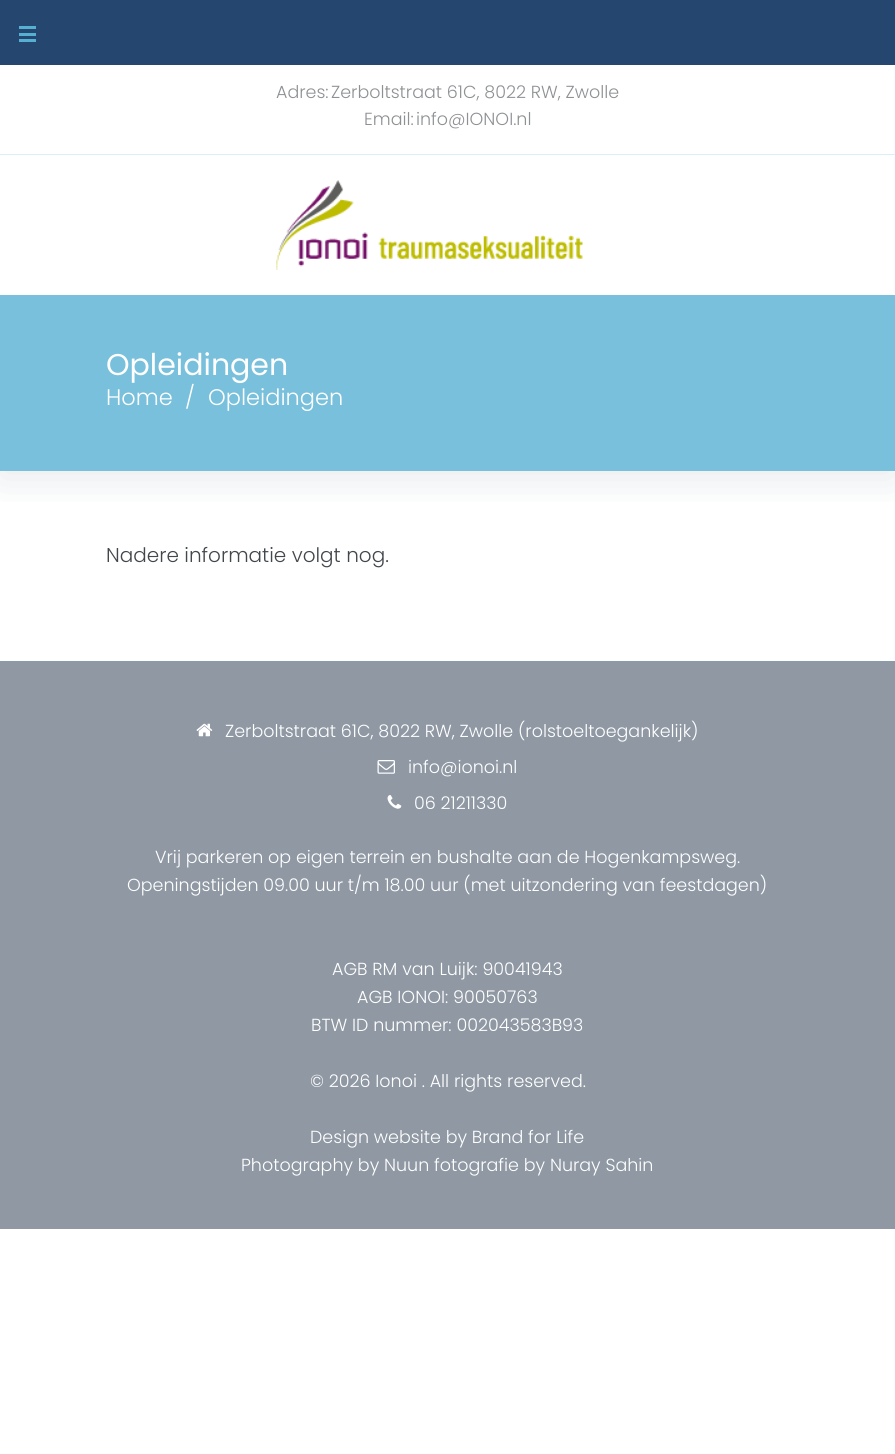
#include <cairo/cairo.h>
#include <math.h>
#include <stddef.h>

typedef struct { double x, y; const char *s; } line_t;
typedef struct { double x, y, w, h; unsigned color; } box_t;
static cairo_t *cr;

static void rgb(unsigned color)
{
	cairo_set_source_rgb(cr, (color >> 16) / 255.0, (color >> 8 & 255) / 255.0, (color & 255) / 255.0);
}

static void rrect(double x, double y, double w, double h, double r)
{
	cairo_new_sub_path(cr);
	cairo_arc(cr, x + w - r, y + h - r, r, 0, M_PI / 2);
	cairo_arc(cr, x + r, y + h - r, r, M_PI / 2, M_PI);
	cairo_arc(cr, x + r, y + r, r, M_PI, 1.5 * M_PI);
	cairo_arc(cr, x + w - r, y + r, r, 1.5 * M_PI, 2 * M_PI);
	cairo_close_path(cr);
}

static void soft_shadow(double x, double y, double w, double h, double r, double blur, double alpha)
{
	cairo_push_group_with_content(cr, CAIRO_CONTENT_ALPHA);
	cairo_set_operator(cr, CAIRO_OPERATOR_SOURCE);
	for (int i = 15; i >= -15 && fmin(w, h) + blur * i / 3 > 0; i -= 2) {
		double e = blur * i / 6;
		cairo_set_source_rgba(cr, 0, 0, 0, alpha * erfc((i - 1) / 8.5) / 2);
		rrect(x - e, y - e, w + 2 * e, h + 2 * e, fmax(0, fmin(r + e + blur * .6, fmin(w, h) / 2 + e)));
		cairo_fill(cr);
	}
	cairo_pattern_t *soft = cairo_pop_group(cr);
	cairo_mask(cr, soft);
	cairo_pattern_destroy(soft);
}

static void image(const char *path, double x, double y, double w, double h)
{
	cairo_surface_t *image = cairo_image_surface_create_from_png(path);
	cairo_save(cr);
	cairo_set_source_surface(cr, image, x, y);
	cairo_rectangle(cr, x, y, w, h);
	cairo_fill(cr);
	cairo_restore(cr);
	cairo_surface_destroy(image);
}

int main(void) {
	cairo_surface_t *surface = cairo_image_surface_create(CAIRO_FORMAT_RGB24, 895, 1454);
	cr = cairo_create(surface);
	cairo_font_options_t *options = cairo_font_options_create();
	cairo_font_options_set_hint_metrics(options, CAIRO_HINT_METRICS_OFF);
	cairo_font_options_set_hint_style(options, CAIRO_HINT_STYLE_NONE);
	cairo_set_font_options(cr, options);
	cairo_set_miter_limit(cr, 4);
	rgb(0xffffff);
	cairo_paint(cr);
	cairo_save(cr);
	cairo_rectangle(cr, 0, 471, 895, 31);
	cairo_clip(cr);
	rgb(0x677a8d);
	soft_shadow(0, 71, 895, 407, 0, 20, 0.17);
	cairo_restore(cr);
	{
		static const box_t items[] = {
			{0, 0, 895, 65, 0x24466f},
			{19, 33, 17, 3, 0x56b0d2},
			{19, 26, 17, 3, 0x56b0d2},
			{19, 39, 17, 3, 0x56b0d2},
			{0, 154, 895, 1, 0xddeff6},
		};
		for (size_t i = 0; i < sizeof items / sizeof *items; i++) {
			rgb(items[i].color);
			cairo_rectangle(cr, items[i].x, items[i].y, items[i].w, items[i].h);
			cairo_fill(cr);
		}
	}
	image("img/1.png", 276, 180, 307, 90);
	{
		static const box_t items[] = {
			{0, 295, 895, 176, 0x78c0db},
			{0, 662, 895, 567, 0x8f98a3},
			{0, 661, 895, 1, 0x869caa},
		};
		for (size_t i = 0; i < sizeof items / sizeof *items; i++) {
			rgb(items[i].color);
			cairo_rectangle(cr, items[i].x, items[i].y, items[i].w, items[i].h);
			cairo_fill(cr);
		}
	}
	image("img/2.png", 196, 723, 17, 14);
	image("img/3.png", 377, 760, 18, 14);
	image("img/4.png", 387, 795, 15, 14);
	cairo_select_font_face(cr, "Poppins Light", CAIRO_FONT_SLANT_NORMAL, CAIRO_FONT_WEIGHT_NORMAL);
	cairo_set_font_size(cr, 17.5);
	rgb(0x8e9194);
	{
		static const line_t items[] = {
			{276, 98, "Adres:"},
			{331, 98, "Zerboltstraat 61C, 8022 RW, Zwolle"},
			{364, 125, "Email:"},
			{416, 125, "info@IONOI.nl"},
		};
		for (size_t i = 0; i < sizeof items / sizeof *items; i++) {
			cairo_move_to(cr, items[i].x, items[i].y);
			cairo_show_text(cr, items[i].s);
		}
	}
	cairo_select_font_face(cr, "Poppins", CAIRO_FONT_SLANT_NORMAL, CAIRO_FONT_WEIGHT_NORMAL);
	cairo_set_font_size(cr, 30);
	rgb(0xffffff);
	cairo_move_to(cr, 106, 375);
	cairo_show_text(cr, "Opleidingen");
	cairo_select_font_face(cr, "Poppins Light", CAIRO_FONT_SLANT_NORMAL, CAIRO_FONT_WEIGHT_NORMAL);
	cairo_set_font_size(cr, 22.5);
	{
		static const line_t items[] = {
			{106, 405, "Home"},
			{185, 405, "/"},
			{208, 405, "Opleidingen"},
		};
		for (size_t i = 0; i < sizeof items / sizeof *items; i++) {
			cairo_move_to(cr, items[i].x, items[i].y);
			cairo_show_text(cr, items[i].s);
		}
	}
	cairo_set_font_size(cr, 20);
	rgb(0x42474c);
	cairo_move_to(cr, 106, 562);
	cairo_show_text(cr, "Nadere informatie volgt nog.");
	cairo_set_font_size(cr, 17.5);
	rgb(0xffffff);
	{
		static const line_t items[] = {
			{225, 737, "Zerboltstraat 61C, 8022 RW, Zwolle (rolstoeltoegankelijk)"},
			{408, 773, "info@ionoi.nl"},
			{414, 809, "06 21211330"},
			{155, 863, "Vrij parkeren op eigen terrein en bushalte aan de Hogenkampsweg."},
			{127, 891, "Openingstijden 09.00 uur t/m 18.00 uur (met uitzondering van feestdagen)"},
			{332, 975, "AGB RM van Luijk: 90041943"},
			{357, 1003, "AGB IONOI: 90050763"},
			{311, 1031, "BTW ID nummer: 002043583B93"},
			{310, 1087, "© 2026 Ionoi . All rights reserved."},
			{310, 1143, "Design website by Brand for Life"},
			{241, 1171, "Photography by Nuun fotografie by Nuray Sahin"},
		};
		for (size_t i = 0; i < sizeof items / sizeof *items; i++) {
			cairo_move_to(cr, items[i].x, items[i].y);
			cairo_show_text(cr, items[i].s);
		}
	}
	cairo_surface_write_to_png(surface, "page.png");
	cairo_font_options_destroy(options);
	cairo_destroy(cr);
	cairo_surface_destroy(surface);
	return 0;
}
